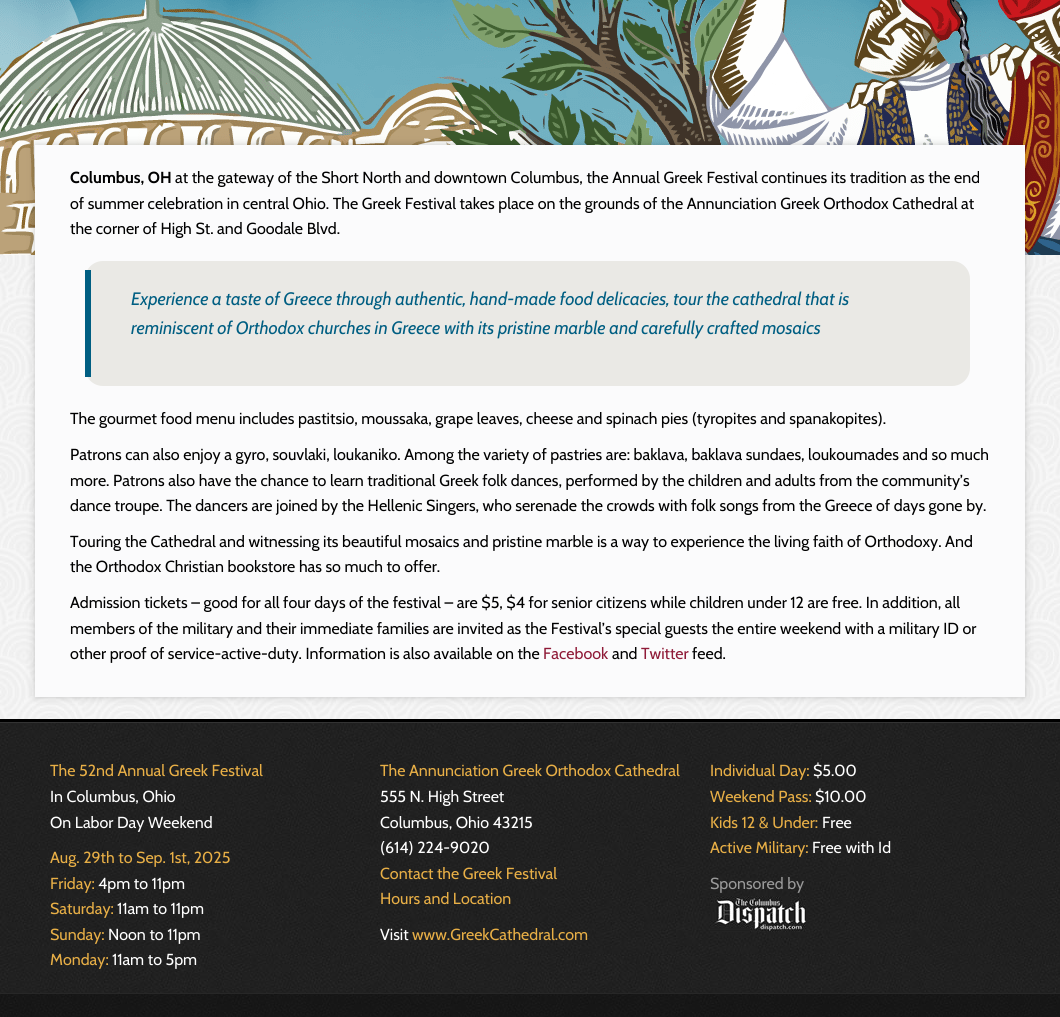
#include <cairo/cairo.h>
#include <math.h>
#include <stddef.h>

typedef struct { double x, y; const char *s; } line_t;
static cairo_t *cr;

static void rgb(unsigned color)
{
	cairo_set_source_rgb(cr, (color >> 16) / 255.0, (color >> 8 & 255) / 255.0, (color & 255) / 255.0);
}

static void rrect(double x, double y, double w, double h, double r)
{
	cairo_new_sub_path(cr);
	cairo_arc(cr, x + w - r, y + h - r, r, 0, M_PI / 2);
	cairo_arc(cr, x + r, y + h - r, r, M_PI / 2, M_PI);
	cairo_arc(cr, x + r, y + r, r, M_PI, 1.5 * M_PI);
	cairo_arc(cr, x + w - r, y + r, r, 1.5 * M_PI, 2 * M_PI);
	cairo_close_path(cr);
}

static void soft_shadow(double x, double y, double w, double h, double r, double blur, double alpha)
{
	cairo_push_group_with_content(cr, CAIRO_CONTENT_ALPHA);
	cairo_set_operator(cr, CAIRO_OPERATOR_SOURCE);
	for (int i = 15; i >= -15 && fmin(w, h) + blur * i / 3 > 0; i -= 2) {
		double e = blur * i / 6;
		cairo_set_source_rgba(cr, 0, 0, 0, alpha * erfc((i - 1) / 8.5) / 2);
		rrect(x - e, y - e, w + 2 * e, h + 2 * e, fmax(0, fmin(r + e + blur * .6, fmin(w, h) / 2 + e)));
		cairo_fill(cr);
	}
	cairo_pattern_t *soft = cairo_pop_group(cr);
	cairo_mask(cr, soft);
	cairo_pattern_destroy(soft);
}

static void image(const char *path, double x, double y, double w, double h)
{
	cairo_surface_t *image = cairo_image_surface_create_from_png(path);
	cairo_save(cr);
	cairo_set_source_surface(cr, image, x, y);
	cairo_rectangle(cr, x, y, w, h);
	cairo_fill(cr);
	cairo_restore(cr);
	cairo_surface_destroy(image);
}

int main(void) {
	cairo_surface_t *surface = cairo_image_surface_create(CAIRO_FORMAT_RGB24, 1060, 1017);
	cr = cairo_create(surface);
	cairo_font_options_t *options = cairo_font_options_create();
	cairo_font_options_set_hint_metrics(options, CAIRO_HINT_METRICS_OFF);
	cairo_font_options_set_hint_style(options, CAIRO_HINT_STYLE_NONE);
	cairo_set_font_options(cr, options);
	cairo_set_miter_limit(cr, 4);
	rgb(0xffffff);
	cairo_paint(cr);
	image("img/1.png", 0, 255, 1060, 464);
	image("img/2.png", 0, 0, 1060, 255);
	rgb(0x000000);
	soft_shadow(35, 145, 990, 552, 0, 4, 0.2);
	rgb(0xfbfbfc);
	cairo_rectangle(cr, 35, 145, 990, 552);
	cairo_fill(cr);
	rgb(0xeae9e5);
	rrect(85, 261, 885, 125, 18);
	cairo_fill(cr);
	rgb(0x005e82);
	cairo_rectangle(cr, 85, 270, 6, 107);
	cairo_fill(cr);
	image("img/3.png", 0, 723, 1060, 294);
	rgb(0x000000);
	cairo_rectangle(cr, 0, 719, 1060, 3);
	cairo_fill(cr);
	rgb(0x333333);
	cairo_rectangle(cr, 0, 722, 1060, 1);
	cairo_fill(cr);
	image("img/4.png", 710, 896, 97, 36);
	cairo_set_source_rgba(cr, 0, 0, 0, 0.3);
	cairo_rectangle(cr, 0, 994, 1060, 23);
	cairo_fill(cr);
	rgb(0x272727);
	cairo_rectangle(cr, 0, 993, 1060, 1);
	cairo_fill(cr);
	cairo_select_font_face(cr, "Cabin", CAIRO_FONT_SLANT_NORMAL, CAIRO_FONT_WEIGHT_BOLD);
	cairo_set_font_size(cr, 16);
	rgb(0x000000);
	cairo_move_to(cr, 70, 183);
	cairo_show_text(cr, "Columbus, OH");
	cairo_select_font_face(cr, "Cabin", CAIRO_FONT_SLANT_NORMAL, CAIRO_FONT_WEIGHT_NORMAL);
	{
		static const line_t items[] = {
			{175, 183, "at the gateway of the Short North and downtown Columbus, the Annual Greek Festival continues its tradition as the end"},
			{70, 209, "of summer celebration in central Ohio. The Greek Festival takes place on the grounds of the Annunciation Greek Orthodox Cathedral at"},
			{70, 234, "the corner of High St. and Goodale Blvd."},
		};
		for (size_t i = 0; i < sizeof items / sizeof *items; i++) {
			cairo_move_to(cr, items[i].x, items[i].y);
			cairo_show_text(cr, items[i].s);
		}
	}
	cairo_select_font_face(cr, "Cabin", CAIRO_FONT_SLANT_ITALIC, CAIRO_FONT_WEIGHT_NORMAL);
	cairo_set_font_size(cr, 18);
	rgb(0x005e82);
	cairo_move_to(cr, 131, 305);
	cairo_show_text(cr, "Experience a taste of Greece through authentic, hand-made food delicacies, tour the cathedral that is");
	cairo_move_to(cr, 131, 334);
	cairo_show_text(cr, "reminiscent of Orthodox churches in Greece with its pristine marble and carefully crafted mosaics");
	cairo_select_font_face(cr, "Cabin", CAIRO_FONT_SLANT_NORMAL, CAIRO_FONT_WEIGHT_NORMAL);
	cairo_set_font_size(cr, 16);
	rgb(0x000000);
	{
		static const line_t items[] = {
			{70, 424, "The gourmet food menu includes pastitsio, moussaka, grape leaves, cheese and spinach pies (tyropites and spanakopites)."},
			{70, 460, "Patrons can also enjoy a gyro, souvlaki, loukaniko. Among the variety of pastries are: baklava, baklava sundaes, loukoumades and so much"},
			{70, 486, "more. Patrons also have the chance to learn traditional Greek folk dances, performed by the children and adults from the community’s"},
			{70, 511, "dance troupe. The dancers are joined by the Hellenic Singers, who serenade the crowds with folk songs from the Greece of days gone by."},
			{70, 547, "Touring the Cathedral and witnessing its beautiful mosaics and pristine marble is a way to experience the living faith of Orthodoxy. And"},
			{70, 572, "the Orthodox Christian bookstore has so much to offer."},
			{70, 608, "Admission tickets – good for all four days of the festival – are $5, $4 for senior citizens while children under 12 are free. In addition, all"},
			{70, 634, "members of the military and their immediate families are invited as the Festival’s special guests the entire weekend with a military ID or"},
			{70, 659, "other proof of service-active-duty. Information is also available on the"},
		};
		for (size_t i = 0; i < sizeof items / sizeof *items; i++) {
			cairo_move_to(cr, items[i].x, items[i].y);
			cairo_show_text(cr, items[i].s);
		}
	}
	rgb(0x8f1a37);
	cairo_move_to(cr, 543, 659);
	cairo_show_text(cr, "Facebook");
	rgb(0x000000);
	cairo_move_to(cr, 612, 659);
	cairo_show_text(cr, "and");
	rgb(0x8f1a37);
	cairo_move_to(cr, 641, 659);
	cairo_show_text(cr, "Twitter");
	rgb(0x000000);
	cairo_move_to(cr, 692, 659);
	cairo_show_text(cr, "feed.");
	rgb(0xe8af46);
	cairo_move_to(cr, 50, 776);
	cairo_show_text(cr, "The 52nd Annual Greek Festival");
	rgb(0xffffff);
	cairo_move_to(cr, 50, 802);
	cairo_show_text(cr, "In Columbus, Ohio");
	cairo_move_to(cr, 50, 828);
	cairo_show_text(cr, "On Labor Day Weekend");
	rgb(0xe8af46);
	cairo_move_to(cr, 50, 863);
	cairo_show_text(cr, "Aug. 29th to Sep. 1st, 2025");
	cairo_move_to(cr, 50, 889);
	cairo_show_text(cr, "Friday:");
	rgb(0xffffff);
	cairo_move_to(cr, 98, 889);
	cairo_show_text(cr, "4pm to 11pm");
	rgb(0xe8af46);
	cairo_move_to(cr, 50, 914);
	cairo_show_text(cr, "Saturday:");
	rgb(0xffffff);
	cairo_move_to(cr, 117, 914);
	cairo_show_text(cr, "11am to 11pm");
	rgb(0xe8af46);
	cairo_move_to(cr, 50, 940);
	cairo_show_text(cr, "Sunday:");
	rgb(0xffffff);
	cairo_move_to(cr, 108, 940);
	cairo_show_text(cr, "Noon to 11pm");
	rgb(0xe8af46);
	cairo_move_to(cr, 50, 965);
	cairo_show_text(cr, "Monday:");
	rgb(0xffffff);
	cairo_move_to(cr, 112, 965);
	cairo_show_text(cr, "11am to 5pm");
	rgb(0xe8af46);
	cairo_move_to(cr, 380, 776);
	cairo_show_text(cr, "The Annunciation Greek Orthodox Cathedral");
	rgb(0xffffff);
	{
		static const line_t items[] = {
			{380, 802, "555 N. High Street"},
			{380, 828, "Columbus, Ohio 43215"},
			{380, 853, "(614) 224-9020"},
		};
		for (size_t i = 0; i < sizeof items / sizeof *items; i++) {
			cairo_move_to(cr, items[i].x, items[i].y);
			cairo_show_text(cr, items[i].s);
		}
	}
	rgb(0xe8af46);
	cairo_move_to(cr, 380, 879);
	cairo_show_text(cr, "Contact the Greek Festival");
	cairo_move_to(cr, 380, 904);
	cairo_show_text(cr, "Hours and Location");
	rgb(0xffffff);
	cairo_move_to(cr, 380, 940);
	cairo_show_text(cr, "Visit");
	rgb(0xe8af46);
	cairo_move_to(cr, 412, 940);
	cairo_show_text(cr, "www.GreekCathedral.com");
	cairo_move_to(cr, 710, 776);
	cairo_show_text(cr, "Individual Day:");
	rgb(0xffffff);
	cairo_move_to(cr, 813, 776);
	cairo_show_text(cr, "$5.00");
	rgb(0xe8af46);
	cairo_move_to(cr, 710, 802);
	cairo_show_text(cr, "Weekend Pass:");
	rgb(0xffffff);
	cairo_move_to(cr, 815, 802);
	cairo_show_text(cr, "$10.00");
	rgb(0xe8af46);
	cairo_move_to(cr, 710, 828);
	cairo_show_text(cr, "Kids 12 & Under:");
	rgb(0xffffff);
	cairo_move_to(cr, 822, 828);
	cairo_show_text(cr, "Free");
	rgb(0xe8af46);
	cairo_move_to(cr, 710, 853);
	cairo_show_text(cr, "Active Military:");
	rgb(0xffffff);
	cairo_move_to(cr, 812, 853);
	cairo_show_text(cr, "Free with Id");
	rgb(0x999999);
	cairo_move_to(cr, 710, 889);
	cairo_show_text(cr, "Sponsored by");
	cairo_surface_write_to_png(surface, "page.png");
	cairo_font_options_destroy(options);
	cairo_destroy(cr);
	cairo_surface_destroy(surface);
	return 0;
}
